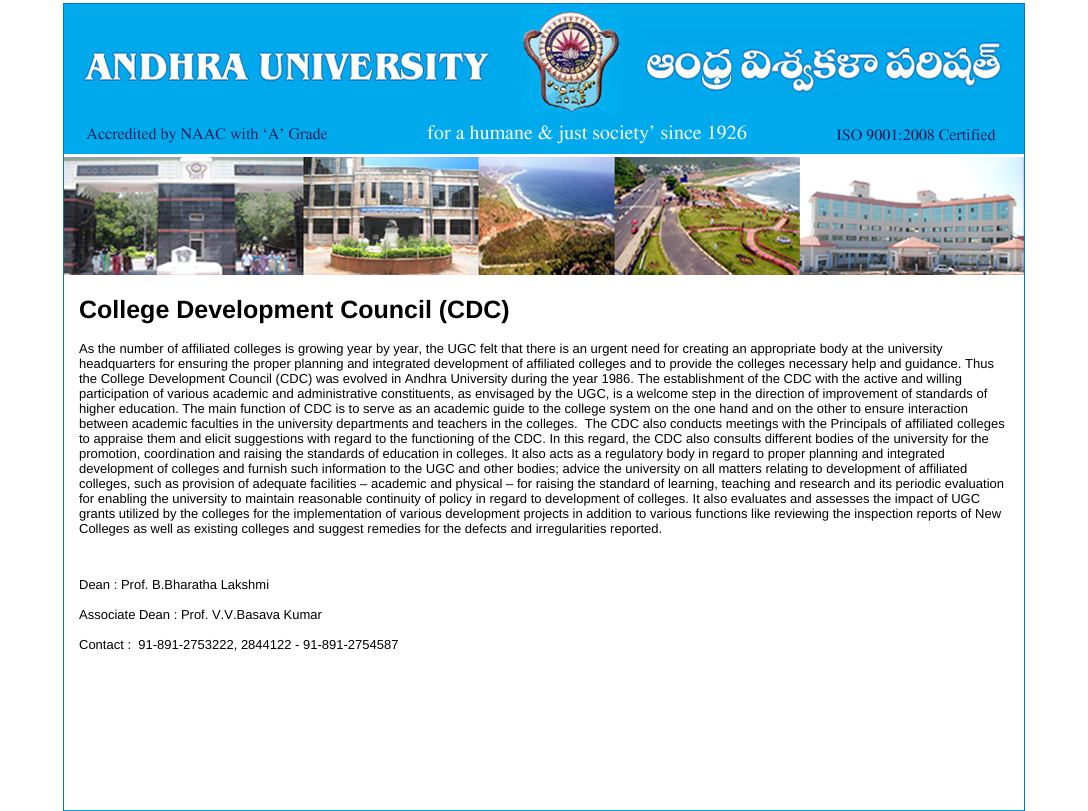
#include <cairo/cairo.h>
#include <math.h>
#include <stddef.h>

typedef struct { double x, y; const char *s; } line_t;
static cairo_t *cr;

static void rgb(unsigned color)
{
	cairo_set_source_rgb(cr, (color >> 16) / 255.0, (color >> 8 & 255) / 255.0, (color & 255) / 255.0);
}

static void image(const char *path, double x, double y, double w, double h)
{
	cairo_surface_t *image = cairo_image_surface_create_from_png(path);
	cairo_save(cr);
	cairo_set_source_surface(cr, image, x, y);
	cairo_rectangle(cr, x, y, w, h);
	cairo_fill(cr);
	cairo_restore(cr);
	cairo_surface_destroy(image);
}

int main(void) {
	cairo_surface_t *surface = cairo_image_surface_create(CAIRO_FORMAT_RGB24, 1088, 811);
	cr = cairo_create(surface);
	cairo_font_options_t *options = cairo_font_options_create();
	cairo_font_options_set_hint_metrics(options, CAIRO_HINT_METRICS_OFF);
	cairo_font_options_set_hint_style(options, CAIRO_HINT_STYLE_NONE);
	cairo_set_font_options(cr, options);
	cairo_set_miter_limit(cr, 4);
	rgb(0xffffff);
	cairo_paint(cr);
	cairo_rectangle(cr, 63.5, 3.5, 961, 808);
	rgb(0x007acc);
	cairo_set_line_width(cr, 1);
	cairo_stroke(cr);
	image("img/1.png", 64, 4, 960, 150);
	image("img/2.png", 64, 157, 960, 118);
	rgb(0x01aaed);
	cairo_rectangle(cr, 64, 810, 960, 1);
	cairo_fill(cr);
	cairo_select_font_face(cr, "Liberation Sans", CAIRO_FONT_SLANT_NORMAL, CAIRO_FONT_WEIGHT_BOLD);
	cairo_set_font_size(cr, 25);
	rgb(0x000000);
	cairo_move_to(cr, 79, 318);
	cairo_show_text(cr, "College Development Council (CDC)");
	cairo_select_font_face(cr, "Liberation Sans", CAIRO_FONT_SLANT_NORMAL, CAIRO_FONT_WEIGHT_NORMAL);
	cairo_set_font_size(cr, 13);
	{
		static const line_t items[] = {
			{79, 353, "As the number of affiliated colleges is growing year by year, the UGC felt that there is an urgent need for creating an appropriate body at the university"},
			{79, 368, "headquarters for ensuring the proper planning and integrated development of affiliated colleges and to provide the colleges necessary help and guidance. Thus"},
			{79, 383, "the College Development Council (CDC) was evolved in Andhra University during the year 1986. The establishment of the CDC with the active and willing"},
			{79, 398, "participation of various academic and administrative constituents, as envisaged by the UGC, is a welcome step in the direction of improvement of standards of"},
			{79, 413, "higher education. The main function of CDC is to serve as an academic guide to the college system on the one hand and on the other to ensure interaction"},
			{79, 428, "between academic faculties in the university departments and teachers in the colleges.  The CDC also conducts meetings with the Principals of affiliated colleges"},
			{79, 443, "to appraise them and elicit suggestions with regard to the functioning of the CDC. In this regard, the CDC also consults different bodies of the university for the"},
			{79, 458, "promotion, coordination and raising the standards of education in colleges. It also acts as a regulatory body in regard to proper planning and integrated"},
			{79, 473, "development of colleges and furnish such information to the UGC and other bodies; advice the university on all matters relating to development of affiliated"},
			{79, 488, "colleges, such as provision of adequate facilities – academic and physical – for raising the standard of learning, teaching and research and its periodic evaluation"},
			{79, 503, "for enabling the university to maintain reasonable continuity of policy in regard to development of colleges. It also evaluates and assesses the impact of UGC"},
			{79, 518, "grants utilized by the colleges for the implementation of various development projects in addition to various functions like reviewing the inspection reports of New"},
			{79, 533, "Colleges as well as existing colleges and suggest remedies for the defects and irregularities reported."},
			{79, 589, "Dean : Prof. B.Bharatha Lakshmi"},
			{79, 619, "Associate Dean : Prof. V.V.Basava Kumar"},
			{79, 649, "Contact :  91-891-2753222, 2844122 - 91-891-2754587"},
		};
		for (size_t i = 0; i < sizeof items / sizeof *items; i++) {
			cairo_move_to(cr, items[i].x, items[i].y);
			cairo_show_text(cr, items[i].s);
		}
	}
	cairo_surface_write_to_png(surface, "page.png");
	cairo_font_options_destroy(options);
	cairo_destroy(cr);
	cairo_surface_destroy(surface);
	return 0;
}
